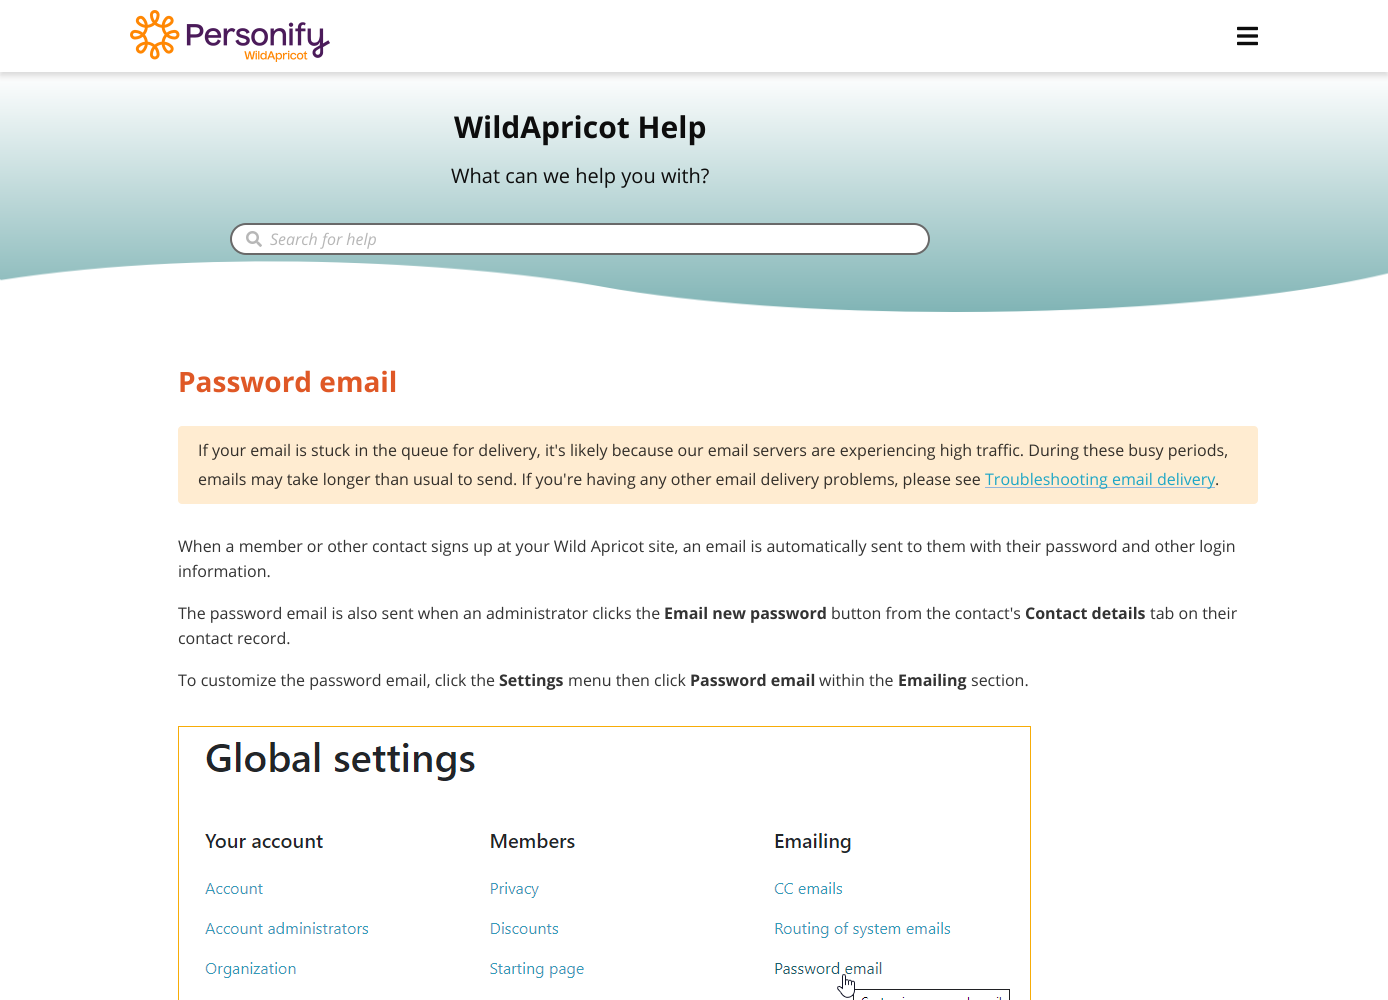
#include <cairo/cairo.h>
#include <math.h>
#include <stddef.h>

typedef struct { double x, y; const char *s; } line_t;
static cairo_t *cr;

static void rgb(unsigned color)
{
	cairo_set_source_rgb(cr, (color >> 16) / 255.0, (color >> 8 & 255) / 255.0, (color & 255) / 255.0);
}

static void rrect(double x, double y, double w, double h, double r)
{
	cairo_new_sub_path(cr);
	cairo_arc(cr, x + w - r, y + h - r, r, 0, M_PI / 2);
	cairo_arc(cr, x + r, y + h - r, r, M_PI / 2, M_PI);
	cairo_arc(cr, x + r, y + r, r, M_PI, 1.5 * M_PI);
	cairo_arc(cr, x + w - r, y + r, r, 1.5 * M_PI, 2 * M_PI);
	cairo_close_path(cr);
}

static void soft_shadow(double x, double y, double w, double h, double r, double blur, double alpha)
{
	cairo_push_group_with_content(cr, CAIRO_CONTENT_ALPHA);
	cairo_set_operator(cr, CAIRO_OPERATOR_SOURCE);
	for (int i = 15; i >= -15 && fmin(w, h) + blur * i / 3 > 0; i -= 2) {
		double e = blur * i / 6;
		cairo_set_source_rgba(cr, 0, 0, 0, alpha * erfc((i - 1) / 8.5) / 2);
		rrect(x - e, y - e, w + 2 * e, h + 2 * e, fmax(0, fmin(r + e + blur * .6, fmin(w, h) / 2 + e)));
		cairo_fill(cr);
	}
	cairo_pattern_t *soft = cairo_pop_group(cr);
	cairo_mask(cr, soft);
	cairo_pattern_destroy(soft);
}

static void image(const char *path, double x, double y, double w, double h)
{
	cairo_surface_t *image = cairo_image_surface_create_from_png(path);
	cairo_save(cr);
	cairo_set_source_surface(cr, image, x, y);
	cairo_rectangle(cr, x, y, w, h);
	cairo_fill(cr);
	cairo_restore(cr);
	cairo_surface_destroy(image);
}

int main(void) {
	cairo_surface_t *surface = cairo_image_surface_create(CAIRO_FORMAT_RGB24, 1388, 1000);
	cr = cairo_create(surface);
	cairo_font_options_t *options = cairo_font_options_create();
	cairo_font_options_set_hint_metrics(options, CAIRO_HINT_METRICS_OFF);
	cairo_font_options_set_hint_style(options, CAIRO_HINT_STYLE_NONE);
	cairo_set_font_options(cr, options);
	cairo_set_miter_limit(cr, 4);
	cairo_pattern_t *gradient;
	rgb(0xffffff);
	cairo_paint(cr);
	gradient = cairo_pattern_create_linear(694, 72, 694, 312);
	cairo_pattern_add_color_stop_rgba(gradient, 0, 1, 1, 1, 1);
	cairo_pattern_add_color_stop_rgba(gradient, 1, 0.502, 0.706, 0.71, 1);
	cairo_set_source(cr, gradient);
	cairo_pattern_destroy(gradient);
	cairo_rectangle(cr, 0, 77, 1388, 235);
	cairo_fill(cr);
	cairo_save(cr);
	cairo_rectangle(cr, 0, 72, 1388, 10);
	cairo_clip(cr);
	rgb(0xd9d9d9);
	soft_shadow(0, 4, 1388, 72, 0, 3, 1);
	cairo_restore(cr);
	image("img/1.png", 130, 10, 200, 52);
	image("img/2.png", 1237, 26, 21, 20);
	rgb(0xffffff);
	rrect(231, 224, 698, 30, 15);
	cairo_fill_preserve(cr);
	rgb(0x696969);
	cairo_stroke(cr);
	image("img/3.png", 246, 231, 16, 16);
	image("img/4.png", 0, 261, 1388, 51);
	rgb(0xffecd1);
	rrect(178, 426, 1080, 78, 4);
	cairo_fill(cr);
	rgb(0x92b5db);
	cairo_rectangle(cr, 985, 487, 230, 1);
	cairo_fill(cr);
	image("img/5.png", 178, 726, 853, 274);
	cairo_select_font_face(cr, "Open Sans", CAIRO_FONT_SLANT_NORMAL, CAIRO_FONT_WEIGHT_BOLD);
	cairo_set_font_size(cr, 30);
	rgb(0x0d0d0d);
	cairo_move_to(cr, 454, 138);
	cairo_show_text(cr, "WildApricot Help");
	cairo_select_font_face(cr, "Open Sans", CAIRO_FONT_SLANT_NORMAL, CAIRO_FONT_WEIGHT_NORMAL);
	cairo_set_font_size(cr, 20);
	cairo_move_to(cr, 451, 183);
	cairo_show_text(cr, "What can we help you with?");
	cairo_select_font_face(cr, "Open Sans", CAIRO_FONT_SLANT_ITALIC, CAIRO_FONT_WEIGHT_NORMAL);
	cairo_set_font_size(cr, 16);
	rgb(0xb6b6b6);
	cairo_move_to(cr, 270, 245);
	cairo_show_text(cr, "Search for help");
	cairo_select_font_face(cr, "Open Sans", CAIRO_FONT_SLANT_NORMAL, CAIRO_FONT_WEIGHT_BOLD);
	cairo_set_font_size(cr, 28);
	rgb(0xdf5826);
	cairo_move_to(cr, 178, 392);
	cairo_show_text(cr, "Password email");
	cairo_select_font_face(cr, "Open Sans", CAIRO_FONT_SLANT_NORMAL, CAIRO_FONT_WEIGHT_NORMAL);
	cairo_set_font_size(cr, 16);
	rgb(0x332f2a);
	cairo_move_to(cr, 198, 456);
	cairo_show_text(cr, "If your email is stuck in the queue for delivery, it's likely because our email servers are experiencing high traffic. During these busy periods,");
	cairo_move_to(cr, 198, 485);
	cairo_show_text(cr, "emails may take longer than usual to send. If you're having any other email delivery problems, please see");
	rgb(0x1da6c6);
	cairo_move_to(cr, 985, 485);
	cairo_show_text(cr, "Troubleshooting email delivery");
	rgb(0x332f2a);
	cairo_move_to(cr, 1215, 485);
	cairo_show_text(cr, ".");
	rgb(0x333333);
	{
		static const line_t items[] = {
			{178, 552, "When a member or other contact signs up at your Wild Apricot site, an email is automatically sent to them with their password and other login"},
			{178, 577, "information."},
			{178, 619, "The password email is also sent when an administrator clicks the"},
		};
		for (size_t i = 0; i < sizeof items / sizeof *items; i++) {
			cairo_move_to(cr, items[i].x, items[i].y);
			cairo_show_text(cr, items[i].s);
		}
	}
	cairo_select_font_face(cr, "Open Sans", CAIRO_FONT_SLANT_NORMAL, CAIRO_FONT_WEIGHT_BOLD);
	cairo_move_to(cr, 664, 619);
	cairo_show_text(cr, "Email new password");
	cairo_select_font_face(cr, "Open Sans", CAIRO_FONT_SLANT_NORMAL, CAIRO_FONT_WEIGHT_NORMAL);
	cairo_move_to(cr, 831, 619);
	cairo_show_text(cr, "button from the contact's");
	cairo_select_font_face(cr, "Open Sans", CAIRO_FONT_SLANT_NORMAL, CAIRO_FONT_WEIGHT_BOLD);
	cairo_move_to(cr, 1025, 619);
	cairo_show_text(cr, "Contact details");
	cairo_select_font_face(cr, "Open Sans", CAIRO_FONT_SLANT_NORMAL, CAIRO_FONT_WEIGHT_NORMAL);
	{
		static const line_t items[] = {
			{1150, 619, "tab on their"},
			{178, 644, "contact record."},
			{178, 686, "To customize the password email, click the"},
		};
		for (size_t i = 0; i < sizeof items / sizeof *items; i++) {
			cairo_move_to(cr, items[i].x, items[i].y);
			cairo_show_text(cr, items[i].s);
		}
	}
	cairo_select_font_face(cr, "Open Sans", CAIRO_FONT_SLANT_NORMAL, CAIRO_FONT_WEIGHT_BOLD);
	cairo_move_to(cr, 499, 686);
	cairo_show_text(cr, "Settings");
	cairo_select_font_face(cr, "Open Sans", CAIRO_FONT_SLANT_NORMAL, CAIRO_FONT_WEIGHT_NORMAL);
	cairo_move_to(cr, 568, 686);
	cairo_show_text(cr, "menu then click");
	cairo_select_font_face(cr, "Open Sans", CAIRO_FONT_SLANT_NORMAL, CAIRO_FONT_WEIGHT_BOLD);
	cairo_move_to(cr, 690, 686);
	cairo_show_text(cr, "Password email");
	cairo_select_font_face(cr, "Open Sans", CAIRO_FONT_SLANT_NORMAL, CAIRO_FONT_WEIGHT_NORMAL);
	cairo_move_to(cr, 819, 686);
	cairo_show_text(cr, "within the");
	cairo_select_font_face(cr, "Open Sans", CAIRO_FONT_SLANT_NORMAL, CAIRO_FONT_WEIGHT_BOLD);
	cairo_move_to(cr, 898, 686);
	cairo_show_text(cr, "Emailing");
	cairo_select_font_face(cr, "Open Sans", CAIRO_FONT_SLANT_NORMAL, CAIRO_FONT_WEIGHT_NORMAL);
	cairo_move_to(cr, 971, 686);
	cairo_show_text(cr, "section.");
	cairo_surface_write_to_png(surface, "page.png");
	cairo_font_options_destroy(options);
	cairo_destroy(cr);
	cairo_surface_destroy(surface);
	return 0;
}
